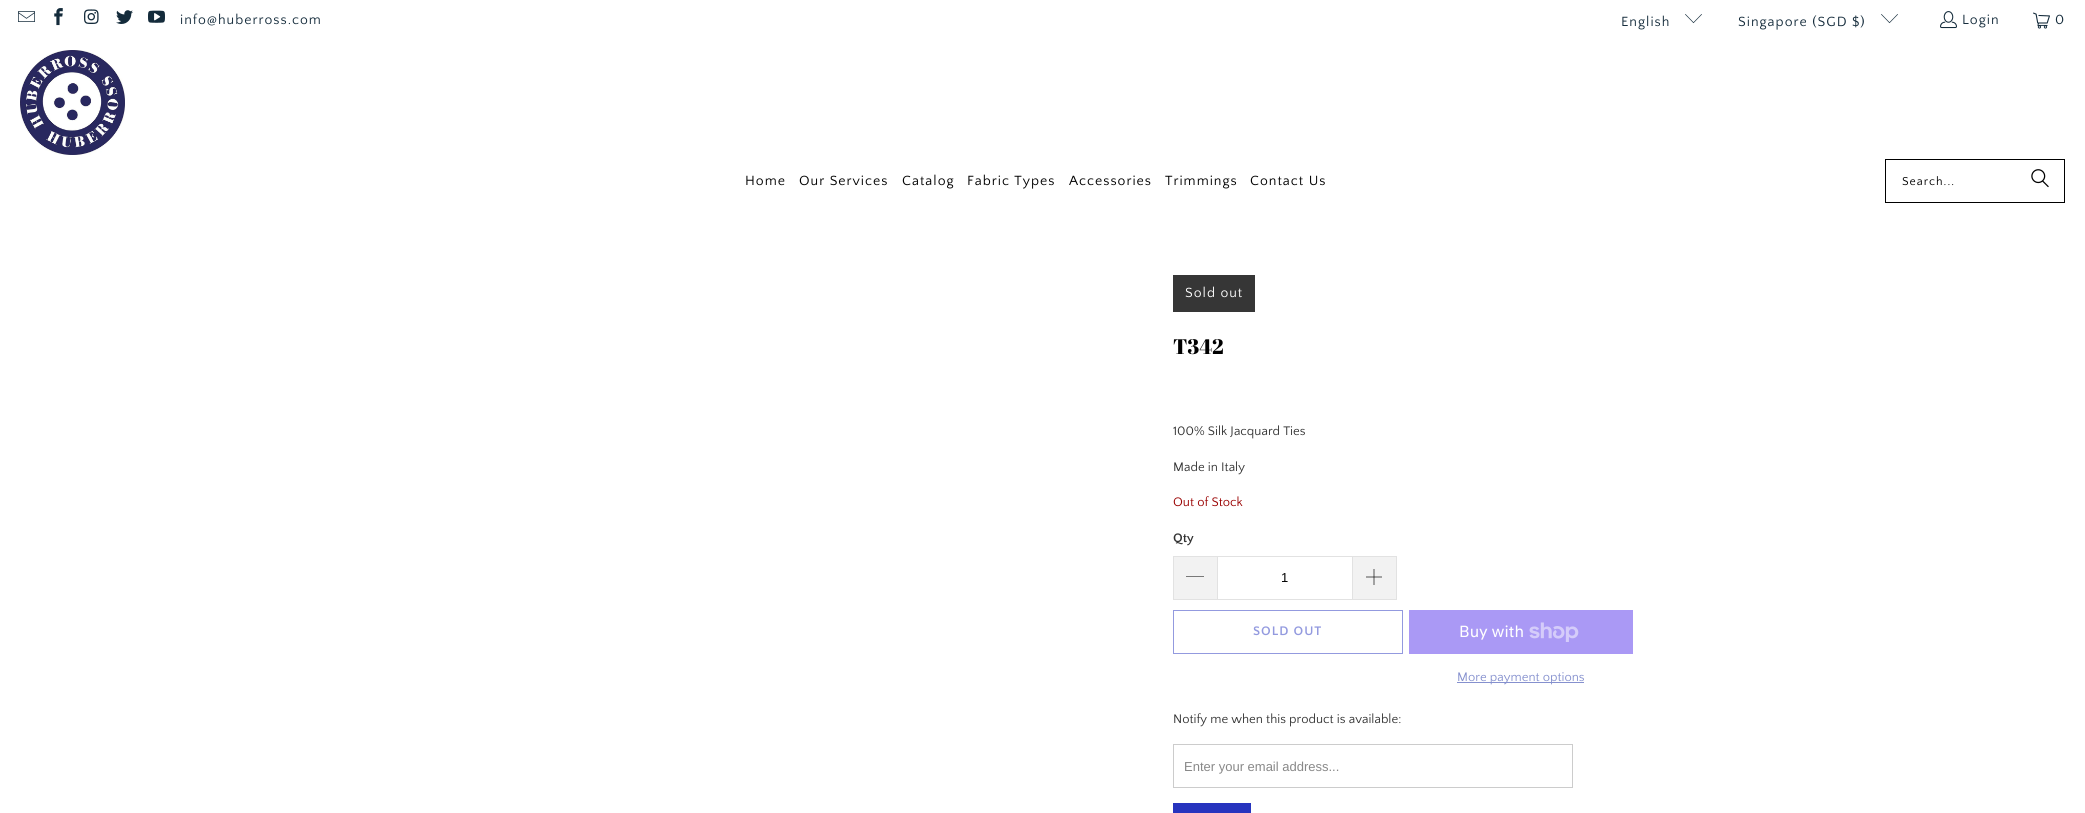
#include <cairo/cairo.h>
#include <math.h>
#include <stddef.h>

typedef struct { double x, y; const char *s; } line_t;
typedef struct { double x, y, w, h; unsigned color; } box_t;
static cairo_t *cr;

static void rgb(unsigned color)
{
	cairo_set_source_rgb(cr, (color >> 16) / 255.0, (color >> 8 & 255) / 255.0, (color & 255) / 255.0);
}

static void tracked(double x, double y, const char *s, double letter, double word)
{
	cairo_move_to(cr, x, y);
	while (*s) {
		char ch[5] = {0};
		int n = 0;
		do ch[n++] = *s++; while ((*s & 0xC0) == 0x80);
		cairo_show_text(cr, ch);
		cairo_rel_move_to(cr, letter + word * (*ch == ' '), 0);
	}
}

static void image(const char *path, double x, double y, double w, double h)
{
	cairo_surface_t *image = cairo_image_surface_create_from_png(path);
	cairo_save(cr);
	cairo_set_source_surface(cr, image, x, y);
	cairo_rectangle(cr, x, y, w, h);
	cairo_fill(cr);
	cairo_restore(cr);
	cairo_surface_destroy(image);
}

int main(void) {
	cairo_surface_t *surface = cairo_image_surface_create(CAIRO_FORMAT_RGB24, 2085, 813);
	cr = cairo_create(surface);
	cairo_font_options_t *options = cairo_font_options_create();
	cairo_font_options_set_hint_metrics(options, CAIRO_HINT_METRICS_OFF);
	cairo_font_options_set_hint_style(options, CAIRO_HINT_STYLE_NONE);
	cairo_set_font_options(cr, options);
	cairo_set_miter_limit(cr, 4);
	rgb(0xffffff);
	cairo_paint(cr);
	image("img/1.png", 18, 11, 17, 11);
	image("img/2.png", 54, 8, 9, 18);
	image("img/3.png", 84, 9, 15, 15);
	image("img/4.png", 116, 10, 17, 14);
	image("img/5.png", 148, 10, 17, 13);
	image("img/6.png", 1685, 14, 17, 10);
	image("img/6.png", 1881, 14, 17, 10);
	image("img/7.png", 1940, 11, 17, 18);
	image("img/8.png", 2033, 12, 17, 17);
	image("img/9.png", 20, 50, 105, 105);
	cairo_rectangle(cr, 1885.5, 159.5, 179, 43);
	rgb(0x000000);
	cairo_set_line_width(cr, 1);
	cairo_stroke(cr);
	image("img/10.png", 2031, 169, 18, 19);
	{
		static const box_t items[] = {
			{1173, 275, 82, 37, 0x363636},
			{1174, 557, 43, 42, 0xf2f2f2},
			{1173, 556, 44, 1, 0xe2e2e2},
			{1173, 599, 44, 1, 0xe2e2e2},
			{1173, 556, 1, 44, 0xe2e2e2},
		};
		for (size_t i = 0; i < sizeof items / sizeof *items; i++) {
			rgb(items[i].color);
			cairo_rectangle(cr, items[i].x, items[i].y, items[i].w, items[i].h);
			cairo_fill(cr);
		}
	}
	rgb(0x000000);
	cairo_new_path(cr);
	cairo_move_to(cr, 1186, 576);
	cairo_line_to(cr, 1204, 576);
	cairo_line_to(cr, 1204, 576.5);
	cairo_line_to(cr, 1186, 576.5);
	cairo_close_path(cr);
	cairo_fill(cr);
	cairo_rectangle(cr, 1217.5, 556.5, 135, 43);
	rgb(0xe2e2e2);
	cairo_stroke(cr);
	{
		static const box_t items[] = {
			{1353, 557, 43, 42, 0xf2f2f2},
			{1353, 556, 44, 1, 0xe2e2e2},
			{1396, 556, 1, 44, 0xe2e2e2},
			{1353, 599, 44, 1, 0xe2e2e2},
		};
		for (size_t i = 0; i < sizeof items / sizeof *items; i++) {
			rgb(items[i].color);
			cairo_rectangle(cr, items[i].x, items[i].y, items[i].w, items[i].h);
			cairo_fill(cr);
		}
	}
	image("img/11.png", 1366, 569, 16, 16);
	cairo_rectangle(cr, 1173.5, 610.5, 229, 43);
	rgb(0x939adf);
	cairo_stroke(cr);
	rgb(0xaa99f5);
	cairo_rectangle(cr, 1409, 610, 224, 44);
	cairo_fill(cr);
	image("img/12.png", 1529, 622, 50, 20);
	rgb(0x8590ce);
	cairo_rectangle(cr, 1457, 682, 127, 1);
	cairo_fill(cr);
	cairo_rectangle(cr, 1173.5, 744.5, 399, 43);
	rgb(0xcccccc);
	cairo_stroke(cr);
	rgb(0x2734be);
	cairo_rectangle(cr, 1173, 803, 78, 10);
	cairo_fill(cr);
	cairo_select_font_face(cr, "Quattrocento Sans", CAIRO_FONT_SLANT_NORMAL, CAIRO_FONT_WEIGHT_NORMAL);
	cairo_set_font_size(cr, 14);
	rgb(0x142b3b);
	{
		static const line_t items[] = {
			{180, 24, "info@huberross.com"},
			{1621, 26, "English"},
			{1738, 26, "Singapore (SGD $)"},
			{1962, 24, "Login"},
			{2055, 24, "0"},
		};
		for (size_t i = 0; i < sizeof items / sizeof *items; i++) {
			tracked(items[i].x, items[i].y, items[i].s, 1, 0);
		}
	}
	rgb(0x000000);
	{
		static const line_t items[] = {
			{745, 185, "Home"},
			{799, 185, "Our Services"},
			{902, 185, "Catalog"},
			{967, 185, "Fabric Types"},
			{1069, 185, "Accessories"},
			{1165, 185, "Trimmings"},
			{1250, 185, "Contact Us"},
		};
		for (size_t i = 0; i < sizeof items / sizeof *items; i++) {
			tracked(items[i].x, items[i].y, items[i].s, 1, 0);
		}
	}
	cairo_set_font_size(cr, 12);
	tracked(1902, 185, "Search...", 1, 0);
	cairo_set_font_size(cr, 14);
	rgb(0xffffff);
	tracked(1185, 297, "Sold out", 1, 0);
	cairo_select_font_face(cr, "Abril Fatface", CAIRO_FONT_SLANT_NORMAL, CAIRO_FONT_WEIGHT_NORMAL);
	cairo_set_font_size(cr, 21);
	rgb(0x000000);
	cairo_move_to(cr, 1173, 354);
	cairo_show_text(cr, "T342");
	cairo_select_font_face(cr, "Quattrocento Sans", CAIRO_FONT_SLANT_NORMAL, CAIRO_FONT_WEIGHT_NORMAL);
	cairo_set_font_size(cr, 13);
	rgb(0x333333);
	cairo_move_to(cr, 1173, 435);
	cairo_show_text(cr, "100% Silk Jacquard Ties");
	cairo_move_to(cr, 1173, 471);
	cairo_show_text(cr, "Made in Italy");
	rgb(0x990000);
	cairo_move_to(cr, 1173, 506);
	cairo_show_text(cr, "Out of Stock");
	cairo_select_font_face(cr, "Quattrocento Sans", CAIRO_FONT_SLANT_NORMAL, CAIRO_FONT_WEIGHT_BOLD);
	rgb(0x333333);
	cairo_move_to(cr, 1173, 542);
	cairo_show_text(cr, "Qty");
	cairo_select_font_face(cr, "Liberation Sans", CAIRO_FONT_SLANT_NORMAL, CAIRO_FONT_WEIGHT_NORMAL);
	rgb(0x000000);
	cairo_move_to(cr, 1281, 582);
	cairo_show_text(cr, "1");
	cairo_select_font_face(cr, "Quattrocento Sans", CAIRO_FONT_SLANT_NORMAL, CAIRO_FONT_WEIGHT_BOLD);
	rgb(0x939adf);
	tracked(1253, 635, "SOLD OUT", 1, 0);
	cairo_select_font_face(cr, "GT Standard", CAIRO_FONT_SLANT_NORMAL, CAIRO_FONT_WEIGHT_NORMAL);
	cairo_set_font_size(cr, 16);
	rgb(0xffffff);
	cairo_move_to(cr, 1459, 637);
	cairo_show_text(cr, "Buy with");
	cairo_select_font_face(cr, "Quattrocento Sans", CAIRO_FONT_SLANT_NORMAL, CAIRO_FONT_WEIGHT_NORMAL);
	cairo_set_font_size(cr, 13);
	rgb(0x8590ce);
	cairo_move_to(cr, 1457, 681);
	cairo_show_text(cr, "More payment options");
	rgb(0x333333);
	cairo_move_to(cr, 1173, 723);
	cairo_show_text(cr, "Notify me when this product is available:");
	cairo_select_font_face(cr, "Liberation Sans", CAIRO_FONT_SLANT_NORMAL, CAIRO_FONT_WEIGHT_NORMAL);
	rgb(0x888888);
	cairo_move_to(cr, 1184, 771);
	cairo_show_text(cr, "Enter your email address...");
	cairo_surface_write_to_png(surface, "page.png");
	cairo_font_options_destroy(options);
	cairo_destroy(cr);
	cairo_surface_destroy(surface);
	return 0;
}
